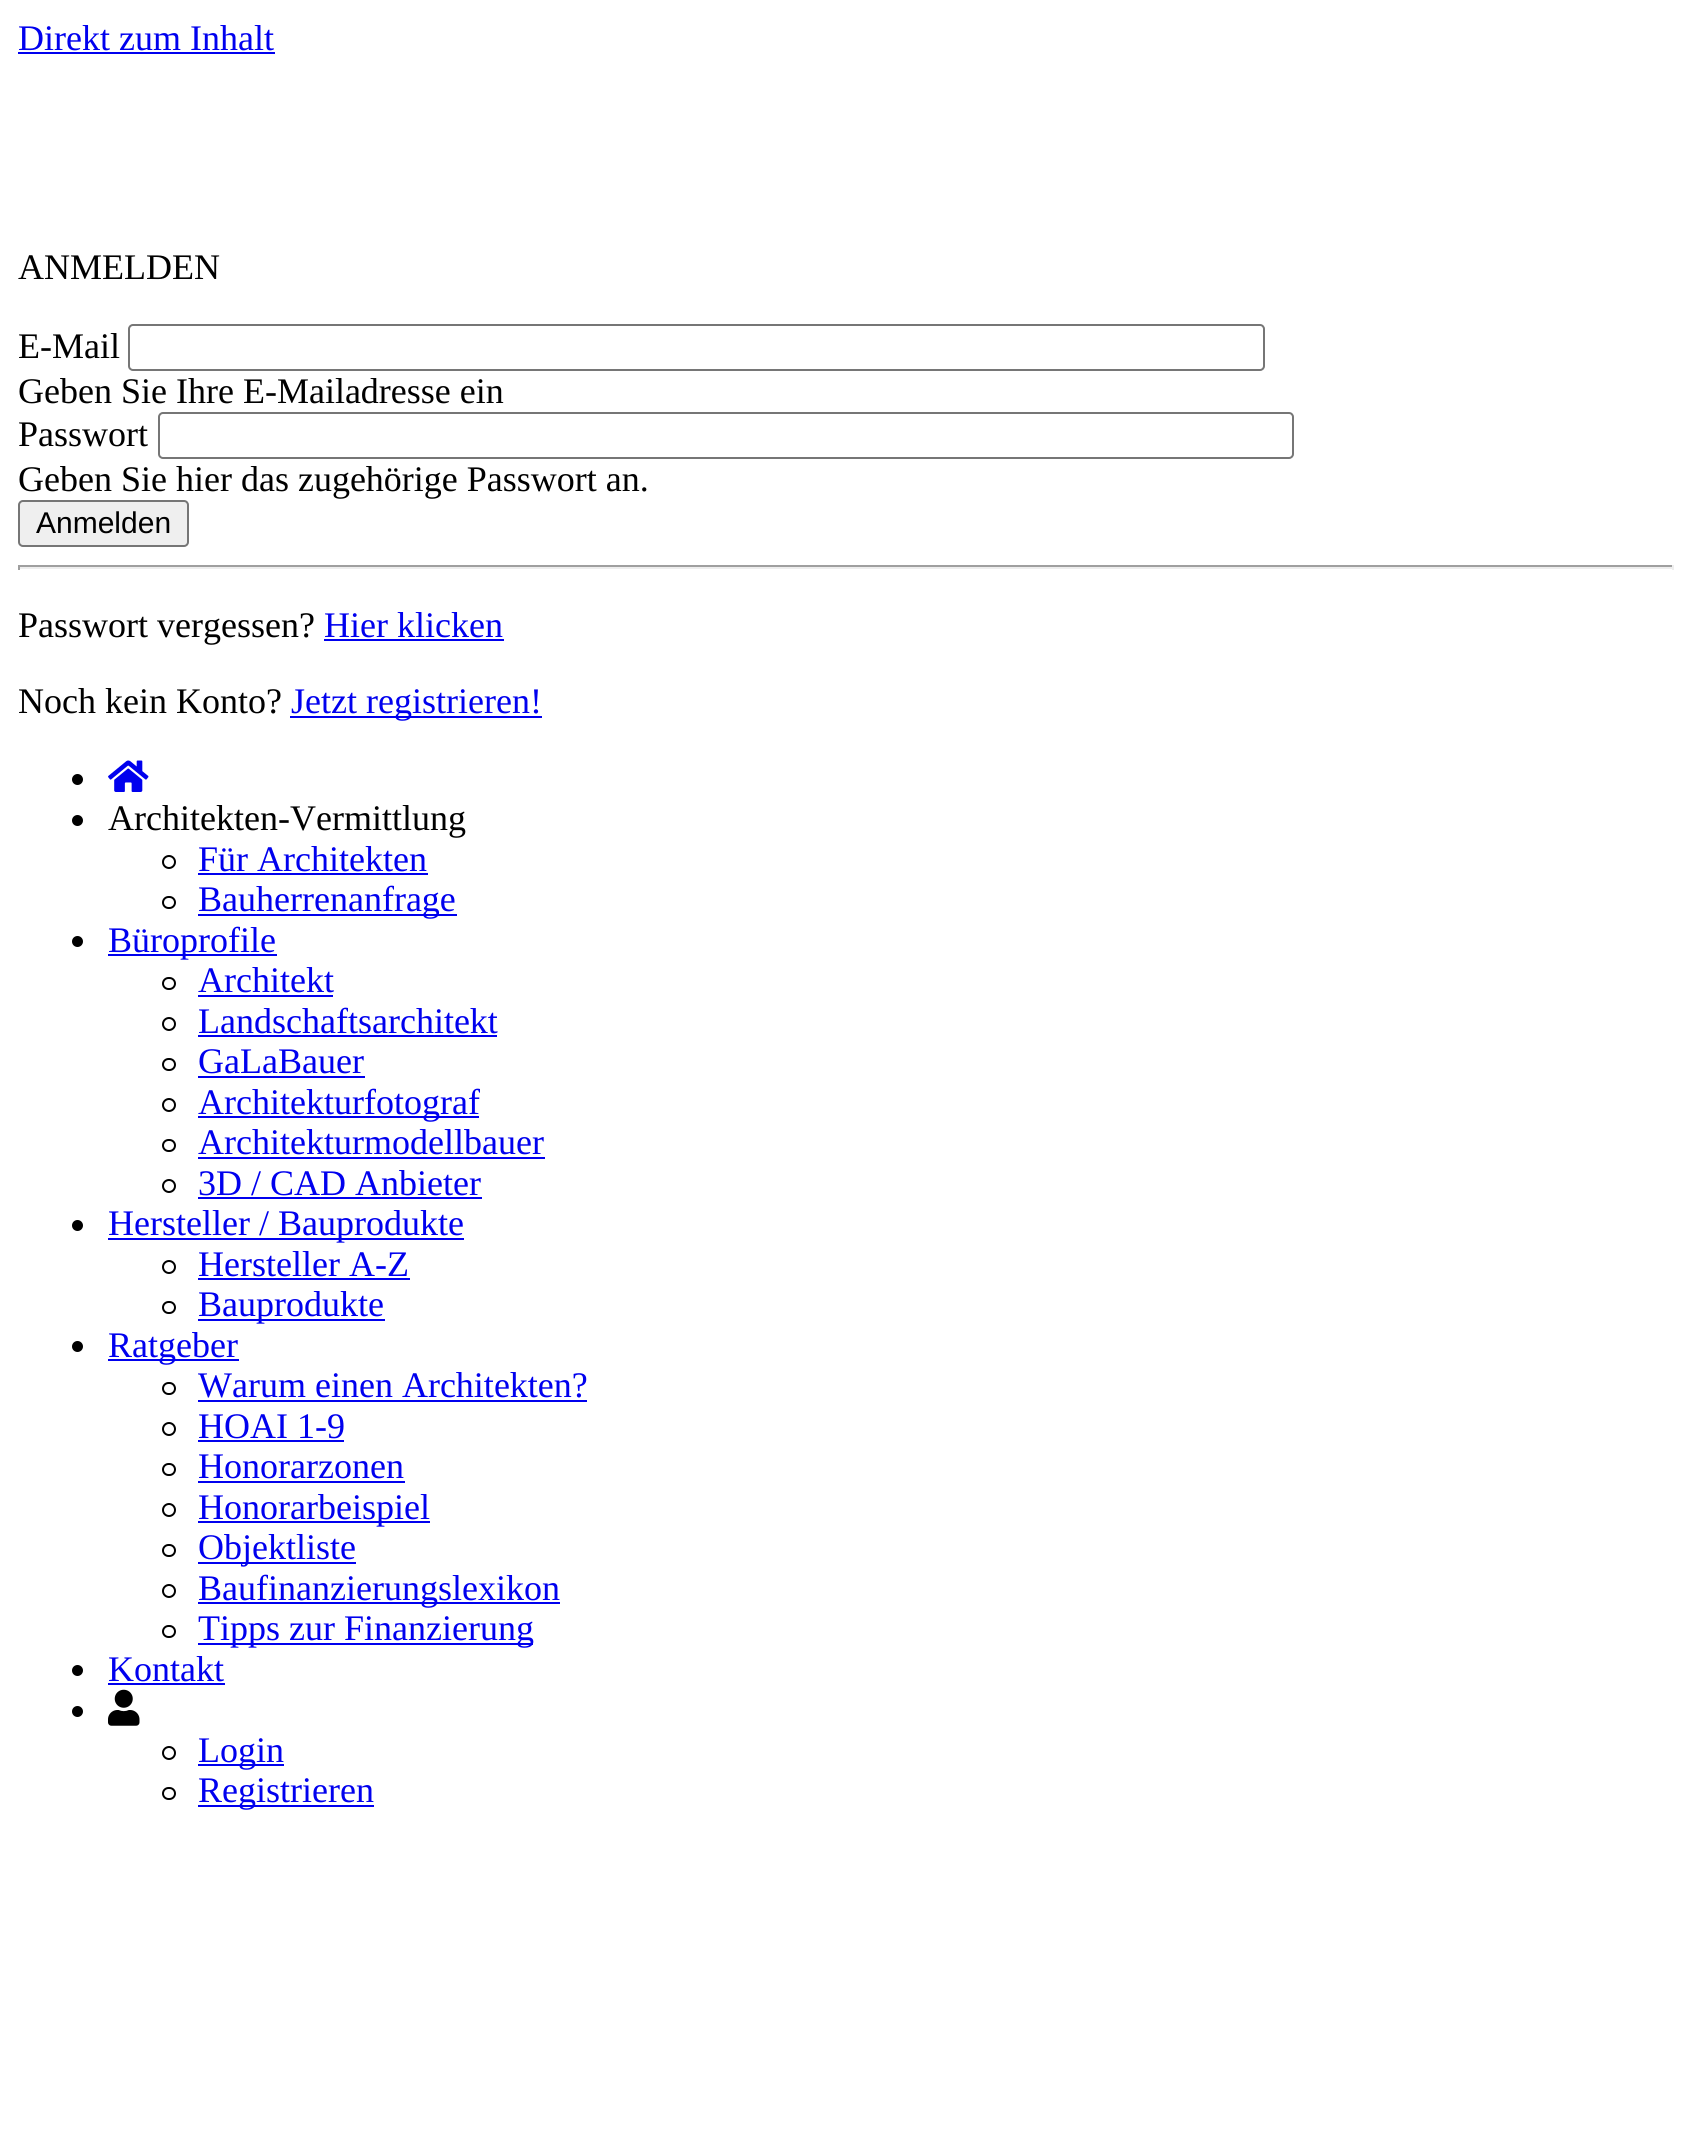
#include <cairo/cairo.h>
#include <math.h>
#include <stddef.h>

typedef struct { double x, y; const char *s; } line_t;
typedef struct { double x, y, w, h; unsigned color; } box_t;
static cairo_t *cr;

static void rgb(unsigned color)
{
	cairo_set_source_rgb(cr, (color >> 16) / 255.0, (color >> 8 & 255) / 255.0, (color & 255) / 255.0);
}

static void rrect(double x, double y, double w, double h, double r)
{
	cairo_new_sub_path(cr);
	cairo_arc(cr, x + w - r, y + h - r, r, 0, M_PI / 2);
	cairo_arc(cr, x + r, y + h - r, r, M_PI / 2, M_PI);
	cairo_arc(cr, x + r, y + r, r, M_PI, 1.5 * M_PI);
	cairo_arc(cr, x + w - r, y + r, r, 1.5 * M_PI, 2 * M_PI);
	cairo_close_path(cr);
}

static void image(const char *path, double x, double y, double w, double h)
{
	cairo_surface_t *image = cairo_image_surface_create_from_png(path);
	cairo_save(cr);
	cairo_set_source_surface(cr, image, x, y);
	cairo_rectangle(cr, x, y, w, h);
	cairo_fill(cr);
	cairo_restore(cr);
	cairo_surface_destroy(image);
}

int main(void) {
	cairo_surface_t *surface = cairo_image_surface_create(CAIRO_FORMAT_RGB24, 1692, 2142);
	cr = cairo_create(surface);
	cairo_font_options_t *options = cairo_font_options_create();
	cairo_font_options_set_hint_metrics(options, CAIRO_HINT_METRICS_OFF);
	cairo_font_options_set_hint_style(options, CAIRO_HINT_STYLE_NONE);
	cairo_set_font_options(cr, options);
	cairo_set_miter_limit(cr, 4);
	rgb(0xffffff);
	cairo_paint(cr);
	rgb(0x0000ee);
	cairo_rectangle(cr, 18, 52, 257, 2);
	cairo_fill(cr);
	rrect(129, 325, 1135, 45, 4);
	rgb(0x767676);
	cairo_stroke(cr);
	rrect(159, 413, 1134, 45, 4);
	cairo_stroke(cr);
	rgb(0xefefef);
	rrect(19, 501, 169, 45, 4);
	cairo_fill_preserve(cr);
	rgb(0x767676);
	cairo_stroke(cr);
	{
		static const box_t items[] = {
			{18, 565, 1656, 2, 0x9f9f9f},
			{1672, 565, 2, 5, 0xeeeeee},
			{18, 567, 1656, 2, 0xeeeeee},
			{18, 565, 2, 5, 0x9f9f9f},
			{324, 639, 180, 2, 0x0000ee},
			{290, 716, 252, 2, 0x0000ee},
		};
		for (size_t i = 0; i < sizeof items / sizeof *items; i++) {
			rgb(items[i].color);
			cairo_rectangle(cr, items[i].x, items[i].y, items[i].w, items[i].h);
			cairo_fill(cr);
		}
	}
	rgb(0x000000);
	cairo_arc(cr, 77.5, 779.5, 5.5, 0, 2 * M_PI);
	cairo_fill(cr);
	image("img/1.png", 108, 760, 41, 32);
	cairo_arc(cr, 77.5, 820.5, 5.5, 0, 2 * M_PI);
	cairo_fill(cr);
	cairo_arc(cr, 169, 862, 6, 0, 2 * M_PI);
	cairo_stroke(cr);
	rgb(0x0000ee);
	cairo_rectangle(cr, 198, 873, 230, 2);
	cairo_fill(cr);
	rrect(163, 897, 12, 11, 5.5);
	rgb(0x000000);
	cairo_stroke(cr);
	rgb(0x0000ee);
	cairo_rectangle(cr, 198, 914, 259, 2);
	cairo_fill(cr);
	rgb(0x000000);
	cairo_arc(cr, 77.5, 941.5, 5.5, 0, 2 * M_PI);
	cairo_fill(cr);
	rgb(0x0000ee);
	cairo_rectangle(cr, 108, 954, 169, 2);
	cairo_fill(cr);
	rrect(163, 978, 12, 11, 5.5);
	rgb(0x000000);
	cairo_stroke(cr);
	rgb(0x0000ee);
	cairo_rectangle(cr, 198, 995, 135, 2);
	cairo_fill(cr);
	cairo_arc(cr, 169, 1024, 6, 0, 2 * M_PI);
	rgb(0x000000);
	cairo_stroke(cr);
	rgb(0x0000ee);
	cairo_rectangle(cr, 198, 1035, 299, 2);
	cairo_fill(cr);
	rrect(163, 1059, 12, 11, 5.5);
	rgb(0x000000);
	cairo_stroke(cr);
	rgb(0x0000ee);
	cairo_rectangle(cr, 198, 1076, 167, 2);
	cairo_fill(cr);
	cairo_arc(cr, 169, 1105, 6, 0, 2 * M_PI);
	rgb(0x000000);
	cairo_stroke(cr);
	rgb(0x0000ee);
	cairo_rectangle(cr, 198, 1116, 281, 2);
	cairo_fill(cr);
	rrect(163, 1140, 12, 11, 5.5);
	rgb(0x000000);
	cairo_stroke(cr);
	rgb(0x0000ee);
	cairo_rectangle(cr, 198, 1157, 347, 2);
	cairo_fill(cr);
	cairo_arc(cr, 169, 1186, 6, 0, 2 * M_PI);
	rgb(0x000000);
	cairo_stroke(cr);
	rgb(0x0000ee);
	cairo_rectangle(cr, 198, 1197, 284, 2);
	cairo_fill(cr);
	rgb(0x000000);
	cairo_arc(cr, 77.5, 1225.5, 5.5, 0, 2 * M_PI);
	cairo_fill(cr);
	rgb(0x0000ee);
	cairo_rectangle(cr, 108, 1238, 356, 2);
	cairo_fill(cr);
	cairo_arc(cr, 169, 1267, 6, 0, 2 * M_PI);
	rgb(0x000000);
	cairo_stroke(cr);
	rgb(0x0000ee);
	cairo_rectangle(cr, 198, 1278, 212, 2);
	cairo_fill(cr);
	rrect(163, 1302, 12, 11, 5.5);
	rgb(0x000000);
	cairo_stroke(cr);
	rgb(0x0000ee);
	cairo_rectangle(cr, 198, 1319, 187, 2);
	cairo_fill(cr);
	rgb(0x000000);
	cairo_arc(cr, 77.5, 1346.5, 5.5, 0, 2 * M_PI);
	cairo_fill(cr);
	rgb(0x0000ee);
	cairo_rectangle(cr, 108, 1359, 131, 2);
	cairo_fill(cr);
	rrect(163, 1383, 12, 11, 5.5);
	rgb(0x000000);
	cairo_stroke(cr);
	rgb(0x0000ee);
	cairo_rectangle(cr, 198, 1400, 389, 2);
	cairo_fill(cr);
	cairo_arc(cr, 169, 1429, 6, 0, 2 * M_PI);
	rgb(0x000000);
	cairo_stroke(cr);
	rgb(0x0000ee);
	cairo_rectangle(cr, 198, 1440, 146, 2);
	cairo_fill(cr);
	rrect(163, 1464, 12, 11, 5.5);
	rgb(0x000000);
	cairo_stroke(cr);
	rgb(0x0000ee);
	cairo_rectangle(cr, 198, 1481, 207, 2);
	cairo_fill(cr);
	cairo_arc(cr, 169, 1510, 6, 0, 2 * M_PI);
	rgb(0x000000);
	cairo_stroke(cr);
	rgb(0x0000ee);
	cairo_rectangle(cr, 198, 1521, 232, 2);
	cairo_fill(cr);
	rrect(163, 1545, 12, 11, 5.5);
	rgb(0x000000);
	cairo_stroke(cr);
	rgb(0x0000ee);
	cairo_rectangle(cr, 198, 1562, 158, 2);
	cairo_fill(cr);
	cairo_arc(cr, 169, 1591, 6, 0, 2 * M_PI);
	rgb(0x000000);
	cairo_stroke(cr);
	rgb(0x0000ee);
	cairo_rectangle(cr, 198, 1602, 362, 2);
	cairo_fill(cr);
	rrect(163, 1626, 12, 11, 5.5);
	rgb(0x000000);
	cairo_stroke(cr);
	rgb(0x0000ee);
	cairo_rectangle(cr, 198, 1643, 335, 2);
	cairo_fill(cr);
	rgb(0x000000);
	cairo_arc(cr, 77.5, 1670.5, 5.5, 0, 2 * M_PI);
	cairo_fill(cr);
	rgb(0x0000ee);
	cairo_rectangle(cr, 108, 1683, 117, 2);
	cairo_fill(cr);
	rgb(0x000000);
	cairo_arc(cr, 77.5, 1711.5, 5.5, 0, 2 * M_PI);
	cairo_fill(cr);
	image("img/2.png", 108, 1689, 32, 37);
	cairo_arc(cr, 169, 1753, 6, 0, 2 * M_PI);
	cairo_stroke(cr);
	rgb(0x0000ee);
	cairo_rectangle(cr, 198, 1764, 86, 2);
	cairo_fill(cr);
	rrect(163, 1788, 12, 11, 5.5);
	rgb(0x000000);
	cairo_stroke(cr);
	rgb(0x0000ee);
	cairo_rectangle(cr, 198, 1805, 176, 2);
	cairo_fill(cr);
	cairo_select_font_face(cr, "Liberation Serif", CAIRO_FONT_SLANT_NORMAL, CAIRO_FONT_WEIGHT_NORMAL);
	cairo_set_font_size(cr, 36);
	cairo_move_to(cr, 18, 50);
	cairo_show_text(cr, "Direkt zum Inhalt");
	rgb(0x000000);
	{
		static const line_t items[] = {
			{18, 279, "ANMELDEN"},
			{18, 358, "E-Mail"},
			{18, 403, "Geben Sie Ihre E-Mailadresse ein"},
			{18, 446, "Passwort"},
			{18, 491, "Geben Sie hier das zugehörige Passwort an."},
		};
		for (size_t i = 0; i < sizeof items / sizeof *items; i++) {
			cairo_move_to(cr, items[i].x, items[i].y);
			cairo_show_text(cr, items[i].s);
		}
	}
	cairo_select_font_face(cr, "Liberation Sans", CAIRO_FONT_SLANT_NORMAL, CAIRO_FONT_WEIGHT_NORMAL);
	cairo_set_font_size(cr, 30);
	cairo_move_to(cr, 36, 533);
	cairo_show_text(cr, "Anmelden");
	cairo_select_font_face(cr, "Liberation Serif", CAIRO_FONT_SLANT_NORMAL, CAIRO_FONT_WEIGHT_NORMAL);
	cairo_set_font_size(cr, 36);
	cairo_move_to(cr, 18, 637);
	cairo_show_text(cr, "Passwort vergessen?");
	rgb(0x0000ee);
	cairo_move_to(cr, 324, 637);
	cairo_show_text(cr, "Hier klicken");
	rgb(0x000000);
	cairo_move_to(cr, 18, 713);
	cairo_show_text(cr, "Noch kein Konto?");
	rgb(0x0000ee);
	cairo_move_to(cr, 291, 713);
	cairo_show_text(cr, "Jetzt registrieren!");
	rgb(0x000000);
	cairo_move_to(cr, 108, 830);
	cairo_show_text(cr, "Architekten-Vermittlung");
	rgb(0x0000ee);
	{
		static const line_t items[] = {
			{198, 871, "Für Architekten"},
			{198, 911, "Bauherrenanfrage"},
			{108, 952, "Büroprofile"},
			{198, 992, "Architekt"},
			{198, 1033, "Landschaftsarchitekt"},
			{198, 1073, "GaLaBauer"},
			{198, 1114, "Architekturfotograf"},
			{198, 1154, "Architekturmodellbauer"},
			{198, 1195, "3D / CAD Anbieter"},
			{108, 1235, "Hersteller / Bauprodukte"},
			{198, 1276, "Hersteller A-Z"},
			{198, 1316, "Bauprodukte"},
			{108, 1357, "Ratgeber"},
			{198, 1397, "Warum einen Architekten?"},
			{198, 1438, "HOAI 1-9"},
			{198, 1478, "Honorarzonen"},
			{198, 1519, "Honorarbeispiel"},
			{198, 1559, "Objektliste"},
			{198, 1600, "Baufinanzierungslexikon"},
			{198, 1640, "Tipps zur Finanzierung"},
			{108, 1681, "Kontakt"},
			{198, 1762, "Login"},
			{198, 1802, "Registrieren"},
		};
		for (size_t i = 0; i < sizeof items / sizeof *items; i++) {
			cairo_move_to(cr, items[i].x, items[i].y);
			cairo_show_text(cr, items[i].s);
		}
	}
	cairo_surface_write_to_png(surface, "page.png");
	cairo_font_options_destroy(options);
	cairo_destroy(cr);
	cairo_surface_destroy(surface);
	return 0;
}
